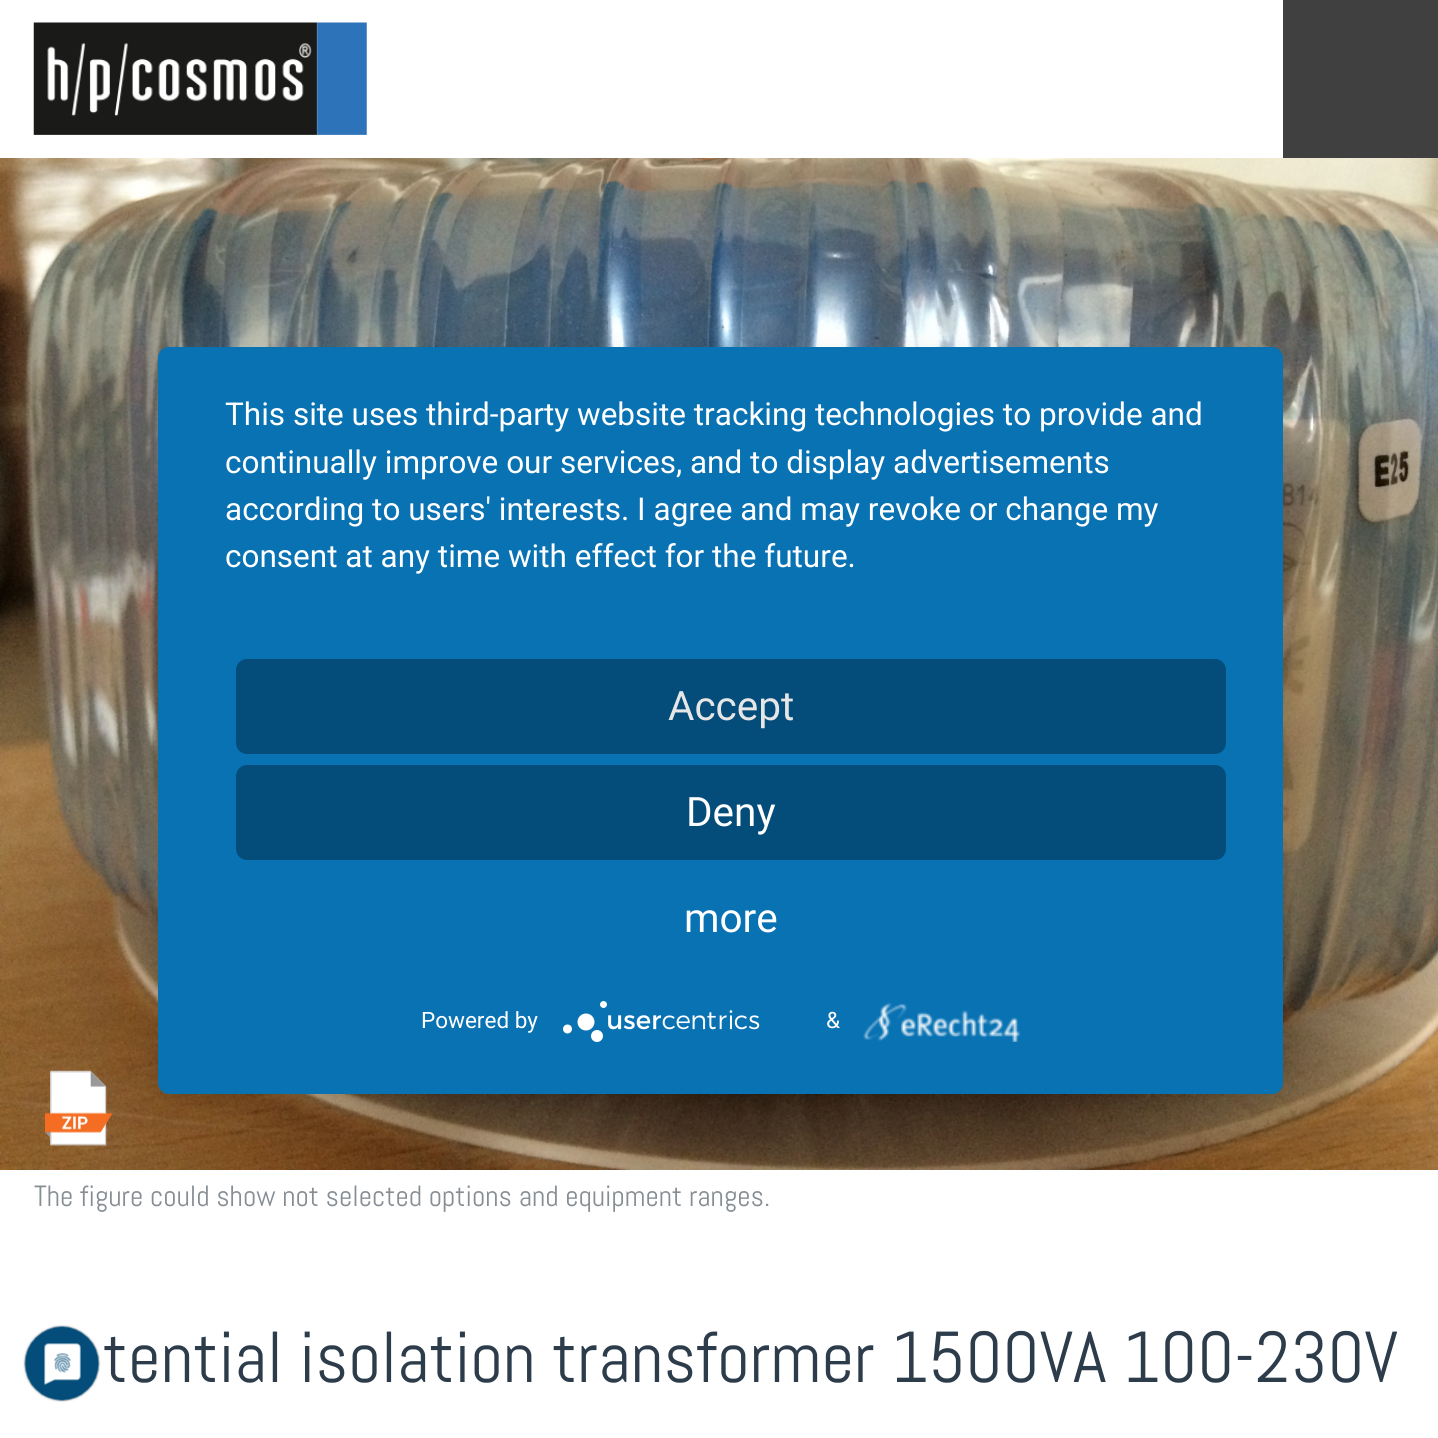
#include <cairo/cairo.h>
#include <math.h>
#include <stddef.h>

typedef struct { double x, y; const char *s; } line_t;
static cairo_t *cr;

static void rgb(unsigned color)
{
	cairo_set_source_rgb(cr, (color >> 16) / 255.0, (color >> 8 & 255) / 255.0, (color & 255) / 255.0);
}

static void rrect(double x, double y, double w, double h, double r)
{
	cairo_new_sub_path(cr);
	cairo_arc(cr, x + w - r, y + h - r, r, 0, M_PI / 2);
	cairo_arc(cr, x + r, y + h - r, r, M_PI / 2, M_PI);
	cairo_arc(cr, x + r, y + r, r, M_PI, 1.5 * M_PI);
	cairo_arc(cr, x + w - r, y + r, r, 1.5 * M_PI, 2 * M_PI);
	cairo_close_path(cr);
}

static void soft_shadow(double x, double y, double w, double h, double r, double blur, double alpha)
{
	cairo_push_group_with_content(cr, CAIRO_CONTENT_ALPHA);
	cairo_set_operator(cr, CAIRO_OPERATOR_SOURCE);
	for (int i = 15; i >= -15 && fmin(w, h) + blur * i / 3 > 0; i -= 2) {
		double e = blur * i / 6;
		cairo_set_source_rgba(cr, 0, 0, 0, alpha * erfc((i - 1) / 8.5) / 2);
		rrect(x - e, y - e, w + 2 * e, h + 2 * e, fmax(0, fmin(r + e + blur * .6, fmin(w, h) / 2 + e)));
		cairo_fill(cr);
	}
	cairo_pattern_t *soft = cairo_pop_group(cr);
	cairo_mask(cr, soft);
	cairo_pattern_destroy(soft);
}

static void image(const char *path, double x, double y, double w, double h)
{
	cairo_surface_t *image = cairo_image_surface_create_from_png(path);
	cairo_save(cr);
	cairo_set_source_surface(cr, image, x, y);
	cairo_rectangle(cr, x, y, w, h);
	cairo_fill(cr);
	cairo_restore(cr);
	cairo_surface_destroy(image);
}

int main(void) {
	cairo_surface_t *surface = cairo_image_surface_create(CAIRO_FORMAT_RGB24, 1438, 1438);
	cr = cairo_create(surface);
	cairo_font_options_t *options = cairo_font_options_create();
	cairo_font_options_set_hint_metrics(options, CAIRO_HINT_METRICS_OFF);
	cairo_font_options_set_hint_style(options, CAIRO_HINT_STYLE_NONE);
	cairo_set_font_options(cr, options);
	cairo_set_miter_limit(cr, 4);
	rgb(0xffffff);
	cairo_paint(cr);
	rgb(0x404040);
	cairo_rectangle(cr, 1283, 0, 155, 158);
	cairo_fill(cr);
	image("img/5.png", 0, 158, 1438, 1012);
	rgb(0x000000);
	soft_shadow(158, 353, 1125, 747, 11, 11, 0.1);
	image("img/6.png", 45, 1070, 68, 76);
	cairo_save(cr);
	rrect(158, 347, 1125, 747, 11);
	cairo_clip(cr);
	soft_shadow(158, 360, 1125, 747, 0, 40.5, 0.3);
	cairo_restore(cr);
	rgb(0x0972b3);
	rrect(158, 347, 1125, 747, 11);
	cairo_fill(cr);
	rgb(0x044d7a);
	rrect(236, 659, 990, 95, 11);
	cairo_fill(cr);
	rrect(236, 765, 990, 95, 11);
	cairo_fill(cr);
	image("img/1.png", 563, 1001, 197, 41);
	image("img/2.png", 863, 1002, 158, 40);
	image("img/3.png", 23, 1325, 78, 77);
	image("img/4.png", 33, 22, 334, 113);
	cairo_select_font_face(cr, "Roboto", CAIRO_FONT_SLANT_NORMAL, CAIRO_FONT_WEIGHT_NORMAL);
	cairo_set_font_size(cr, 31.5);
	rgb(0xffffff);
	{
		static const line_t items[] = {
			{225, 425, "This site uses third-party website tracking technologies to provide and"},
			{225, 473, "continually improve our services, and to display advertisements"},
			{225, 520, "according to users' interests. I agree and may revoke or change my"},
			{225, 567, "consent at any time with effect for the future."},
		};
		for (size_t i = 0; i < sizeof items / sizeof *items; i++) {
			cairo_move_to(cr, items[i].x, items[i].y);
			cairo_show_text(cr, items[i].s);
		}
	}
	cairo_set_font_size(cr, 40.5);
	rgb(0xe6e6e6);
	cairo_move_to(cr, 668, 720);
	cairo_show_text(cr, "Accept");
	rgb(0xffffff);
	cairo_move_to(cr, 686, 826);
	cairo_show_text(cr, "Deny");
	cairo_move_to(cr, 684, 932);
	cairo_show_text(cr, "more");
	cairo_set_font_size(cr, 22.5);
	cairo_move_to(cr, 421, 1028);
	cairo_show_text(cr, "Powered by");
	cairo_move_to(cr, 826, 1028);
	cairo_show_text(cr, "&");
	cairo_select_font_face(cr, "Abel", CAIRO_FONT_SLANT_NORMAL, CAIRO_FONT_WEIGHT_NORMAL);
	cairo_set_font_size(cr, 29.25);
	rgb(0x868d93);
	cairo_move_to(cr, 34, 1206);
	cairo_show_text(cr, "The figure could show not selected options and equipment ranges.");
	cairo_set_font_size(cr, 72);
	rgb(0x2d3c4b);
	cairo_move_to(cr, 103, 1382);
	cairo_show_text(cr, "tential isolation transformer 1500VA 100-230V");
	cairo_surface_write_to_png(surface, "page.png");
	cairo_font_options_destroy(options);
	cairo_destroy(cr);
	cairo_surface_destroy(surface);
	return 0;
}
